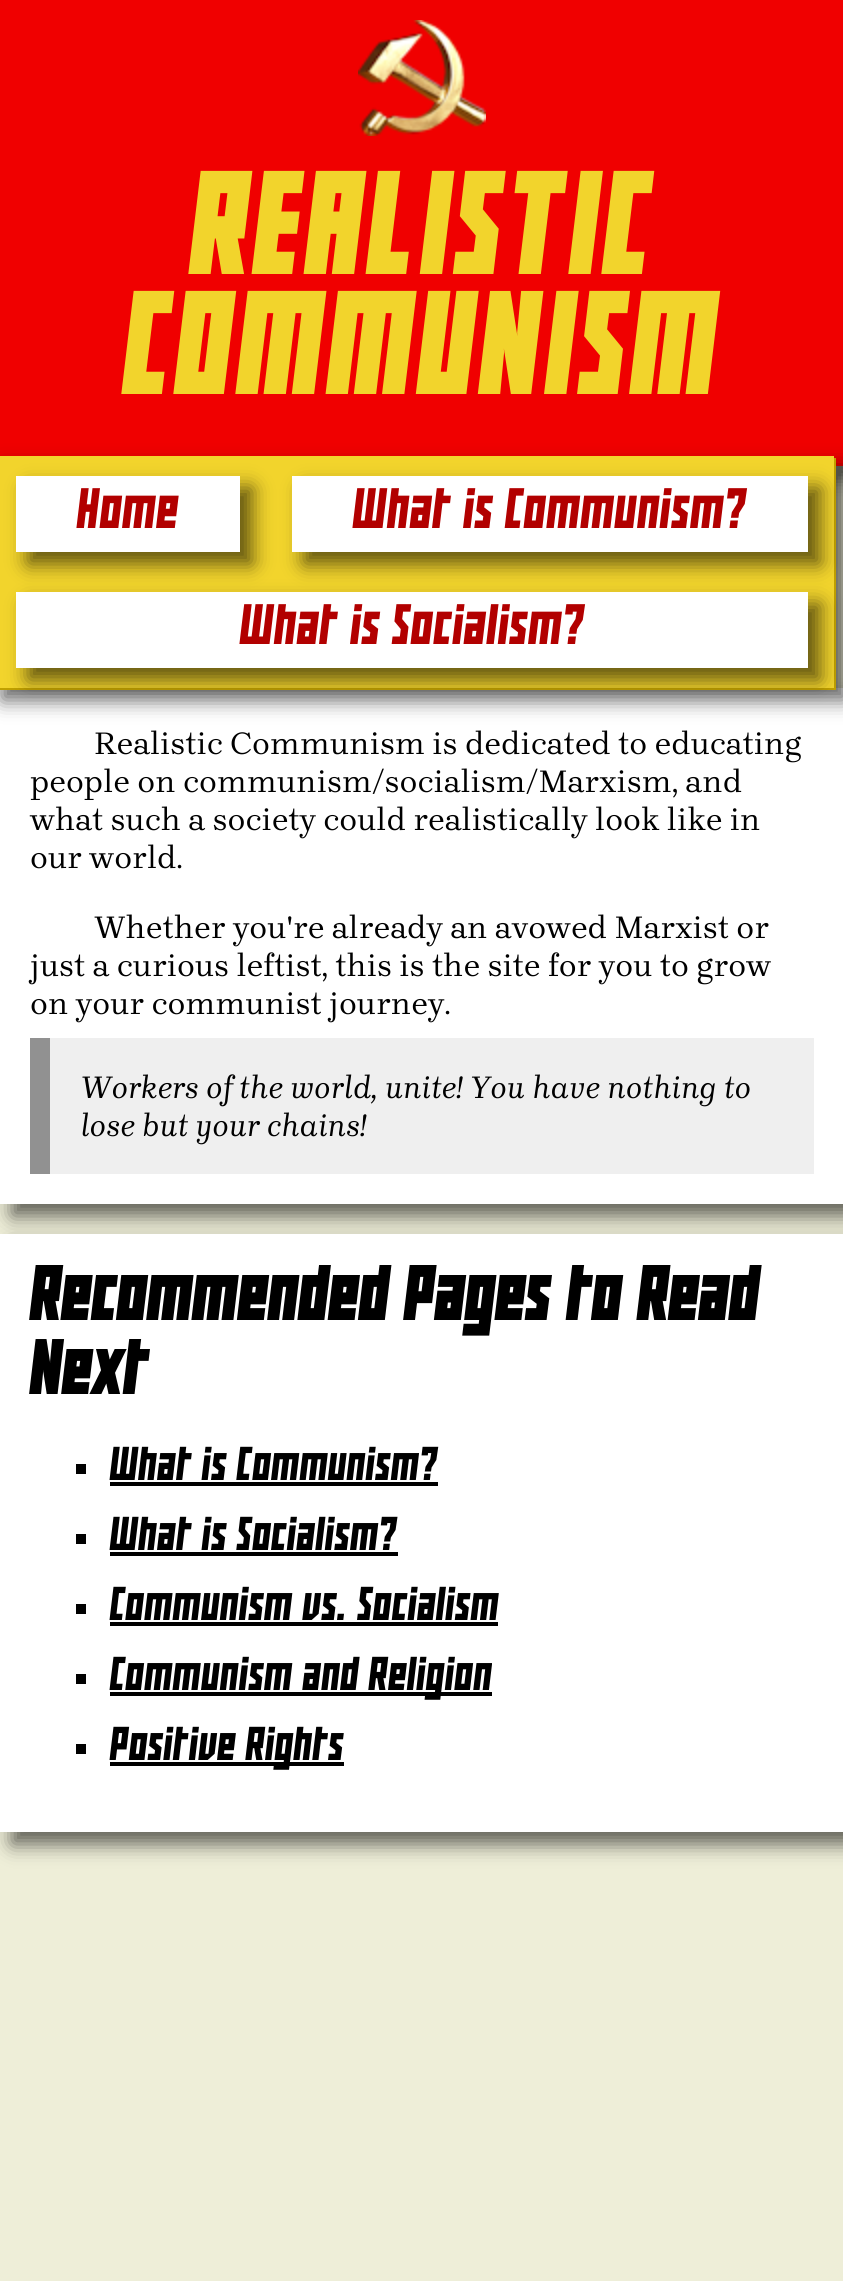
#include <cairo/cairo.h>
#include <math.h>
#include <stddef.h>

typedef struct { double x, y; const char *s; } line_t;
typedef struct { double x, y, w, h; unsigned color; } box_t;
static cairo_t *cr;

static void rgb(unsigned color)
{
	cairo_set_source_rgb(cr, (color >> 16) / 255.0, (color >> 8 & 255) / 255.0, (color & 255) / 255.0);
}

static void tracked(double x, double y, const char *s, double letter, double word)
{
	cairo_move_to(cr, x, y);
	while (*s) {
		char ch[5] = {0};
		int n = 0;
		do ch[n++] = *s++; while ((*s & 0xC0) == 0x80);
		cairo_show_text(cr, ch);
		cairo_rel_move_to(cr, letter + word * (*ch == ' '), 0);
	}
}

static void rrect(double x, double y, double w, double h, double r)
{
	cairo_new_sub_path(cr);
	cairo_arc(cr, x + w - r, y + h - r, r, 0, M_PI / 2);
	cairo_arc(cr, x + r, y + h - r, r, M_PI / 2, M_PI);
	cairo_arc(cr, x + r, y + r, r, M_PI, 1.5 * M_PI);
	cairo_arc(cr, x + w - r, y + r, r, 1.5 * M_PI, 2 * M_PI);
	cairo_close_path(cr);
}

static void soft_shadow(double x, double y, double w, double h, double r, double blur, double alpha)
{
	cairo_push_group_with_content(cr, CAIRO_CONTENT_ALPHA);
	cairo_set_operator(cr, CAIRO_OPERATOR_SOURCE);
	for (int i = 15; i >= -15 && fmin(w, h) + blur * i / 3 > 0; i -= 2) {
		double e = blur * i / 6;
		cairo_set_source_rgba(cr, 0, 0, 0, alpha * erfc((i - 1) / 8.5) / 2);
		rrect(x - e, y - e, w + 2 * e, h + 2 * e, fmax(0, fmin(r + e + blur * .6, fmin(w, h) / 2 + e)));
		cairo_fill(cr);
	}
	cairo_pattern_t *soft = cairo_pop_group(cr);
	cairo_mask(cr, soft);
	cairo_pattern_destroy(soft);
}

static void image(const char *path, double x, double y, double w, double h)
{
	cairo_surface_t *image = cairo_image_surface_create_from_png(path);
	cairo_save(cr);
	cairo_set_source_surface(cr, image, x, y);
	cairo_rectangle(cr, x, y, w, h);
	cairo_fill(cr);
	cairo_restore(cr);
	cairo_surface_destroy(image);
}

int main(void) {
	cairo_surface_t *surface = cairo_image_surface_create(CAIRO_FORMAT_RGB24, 843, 2281);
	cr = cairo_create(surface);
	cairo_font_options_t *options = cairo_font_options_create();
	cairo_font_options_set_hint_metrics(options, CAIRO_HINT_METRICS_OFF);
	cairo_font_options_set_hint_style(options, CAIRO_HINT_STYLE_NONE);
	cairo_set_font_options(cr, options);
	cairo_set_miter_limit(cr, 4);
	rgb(0xeeeed8);
	cairo_paint(cr);
	rgb(0x000000);
	soft_shadow(12, 12, 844, 466, 0, 10, 0.6);
	rgb(0xf00000);
	cairo_rectangle(cr, 0, 0, 843, 466);
	cairo_fill(cr);
	image("img/1.png", 358, 20, 128, 116);
	rgb(0x000000);
	soft_shadow(12, 700, 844, 516, 0, 10, 0.6);
	rgb(0xffffff);
	cairo_rectangle(cr, 0, 688, 843, 516);
	cairo_fill(cr);
	rgb(0x000000);
	soft_shadow(2, 468, 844, 232, 0, 10, 0.6);
	rgb(0xc0a000);
	cairo_new_path(cr);
	cairo_move_to(cr, -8, 688);
	cairo_line_to(cr, -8, 690);
	cairo_line_to(cr, 836, 690);
	cairo_line_to(cr, 836, 458);
	cairo_line_to(cr, 834, 458);
	cairo_line_to(cr, 834, 688);
	cairo_close_path(cr);
	cairo_fill(cr);
	rgb(0xf2d42c);
	cairo_rectangle(cr, 0, 456, 834, 232);
	cairo_fill(cr);
	rgb(0x000000);
	soft_shadow(28, 488, 224, 76, 0, 10, 0.6);
	rgb(0xffffff);
	cairo_rectangle(cr, 16, 476, 224, 76);
	cairo_fill(cr);
	rgb(0x000000);
	soft_shadow(304, 488, 516, 76, 0, 10, 0.6);
	rgb(0xffffff);
	cairo_rectangle(cr, 292, 476, 516, 76);
	cairo_fill(cr);
	rgb(0x000000);
	soft_shadow(28, 604, 792, 76, 0, 10, 0.6);
	{
		static const box_t items[] = {
			{16, 592, 792, 76, 0xffffff},
			{50, 1038, 764, 136, 0xefefef},
			{30, 1038, 20, 136, 0x919191},
		};
		for (size_t i = 0; i < sizeof items / sizeof *items; i++) {
			rgb(items[i].color);
			cairo_rectangle(cr, items[i].x, items[i].y, items[i].w, items[i].h);
			cairo_fill(cr);
		}
	}
	rgb(0x000000);
	soft_shadow(12, 1246, 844, 598, 0, 10, 0.6);
	{
		static const box_t items[] = {
			{0, 1234, 843, 598, 0xffffff},
			{76, 1464, 10, 10, 0x000000},
			{110, 1482, 328, 4, 0x000000},
			{76, 1534, 10, 10, 0x000000},
			{110, 1552, 288, 4, 0x000000},
			{76, 1604, 10, 10, 0x000000},
			{110, 1622, 388, 4, 0x000000},
			{76, 1674, 10, 10, 0x000000},
			{110, 1692, 382, 4, 0x000000},
			{76, 1744, 10, 10, 0x000000},
			{110, 1762, 234, 4, 0x000000},
		};
		for (size_t i = 0; i < sizeof items / sizeof *items; i++) {
			rgb(items[i].color);
			cairo_rectangle(cr, items[i].x, items[i].y, items[i].w, items[i].h);
			cairo_fill(cr);
		}
	}
	cairo_select_font_face(cr, "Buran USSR", CAIRO_FONT_SLANT_NORMAL, CAIRO_FONT_WEIGHT_BOLD);
	cairo_set_font_size(cr, 120);
	rgb(0xf2d42c);
	tracked(190, 274, "REALISTIC", 6, 0);
	tracked(123, 394, "COMMUNISM", 6, 0);
	cairo_select_font_face(cr, "Buran USSR", CAIRO_FONT_SLANT_NORMAL, CAIRO_FONT_WEIGHT_NORMAL);
	cairo_set_font_size(cr, 48);
	rgb(0xb20000);
	{
		static const line_t items[] = {
			{77, 528, "Home"},
			{353, 528, "What is Communism?"},
			{240, 644, "What is Socialism?"},
		};
		for (size_t i = 0; i < sizeof items / sizeof *items; i++) {
			cairo_move_to(cr, items[i].x, items[i].y);
			cairo_show_text(cr, items[i].s);
		}
	}
	cairo_select_font_face(cr, "Brygada 1918", CAIRO_FONT_SLANT_NORMAL, CAIRO_FONT_WEIGHT_NORMAL);
	cairo_set_font_size(cr, 32);
	rgb(0x000000);
	{
		static const line_t items[] = {
			{94, 754, "Realistic Communism is dedicated to educating"},
			{30, 792, "people on communism/socialism/Marxism, and"},
			{30, 830, "what such a society could realistically look like in"},
			{30, 868, "our world."},
			{94, 938, "Whether you're already an avowed Marxist or"},
			{30, 976, "just a curious leftist, this is the site for you to grow"},
			{30, 1014, "on your communist journey."},
		};
		for (size_t i = 0; i < sizeof items / sizeof *items; i++) {
			cairo_move_to(cr, items[i].x, items[i].y);
			cairo_show_text(cr, items[i].s);
		}
	}
	cairo_select_font_face(cr, "Brygada 1918", CAIRO_FONT_SLANT_ITALIC, CAIRO_FONT_WEIGHT_NORMAL);
	cairo_move_to(cr, 80, 1098);
	cairo_show_text(cr, "Workers of the world, unite! You have nothing to");
	cairo_move_to(cr, 80, 1136);
	cairo_show_text(cr, "lose but your chains!");
	cairo_select_font_face(cr, "Buran USSR", CAIRO_FONT_SLANT_NORMAL, CAIRO_FONT_WEIGHT_BOLD);
	cairo_set_font_size(cr, 64);
	cairo_move_to(cr, 30, 1320);
	cairo_show_text(cr, "Recommended Pages to Read");
	cairo_move_to(cr, 30, 1394);
	cairo_show_text(cr, "Next");
	cairo_select_font_face(cr, "Buran USSR", CAIRO_FONT_SLANT_NORMAL, CAIRO_FONT_WEIGHT_NORMAL);
	cairo_set_font_size(cr, 40);
	{
		static const line_t items[] = {
			{110, 1480, "What is Communism?"},
			{110, 1550, "What is Socialism?"},
			{110, 1620, "Communism vs. Socialism"},
			{110, 1690, "Communism and Religion"},
			{110, 1760, "Positive Rights"},
		};
		for (size_t i = 0; i < sizeof items / sizeof *items; i++) {
			cairo_move_to(cr, items[i].x, items[i].y);
			cairo_show_text(cr, items[i].s);
		}
	}
	cairo_surface_write_to_png(surface, "page.png");
	cairo_font_options_destroy(options);
	cairo_destroy(cr);
	cairo_surface_destroy(surface);
	return 0;
}
